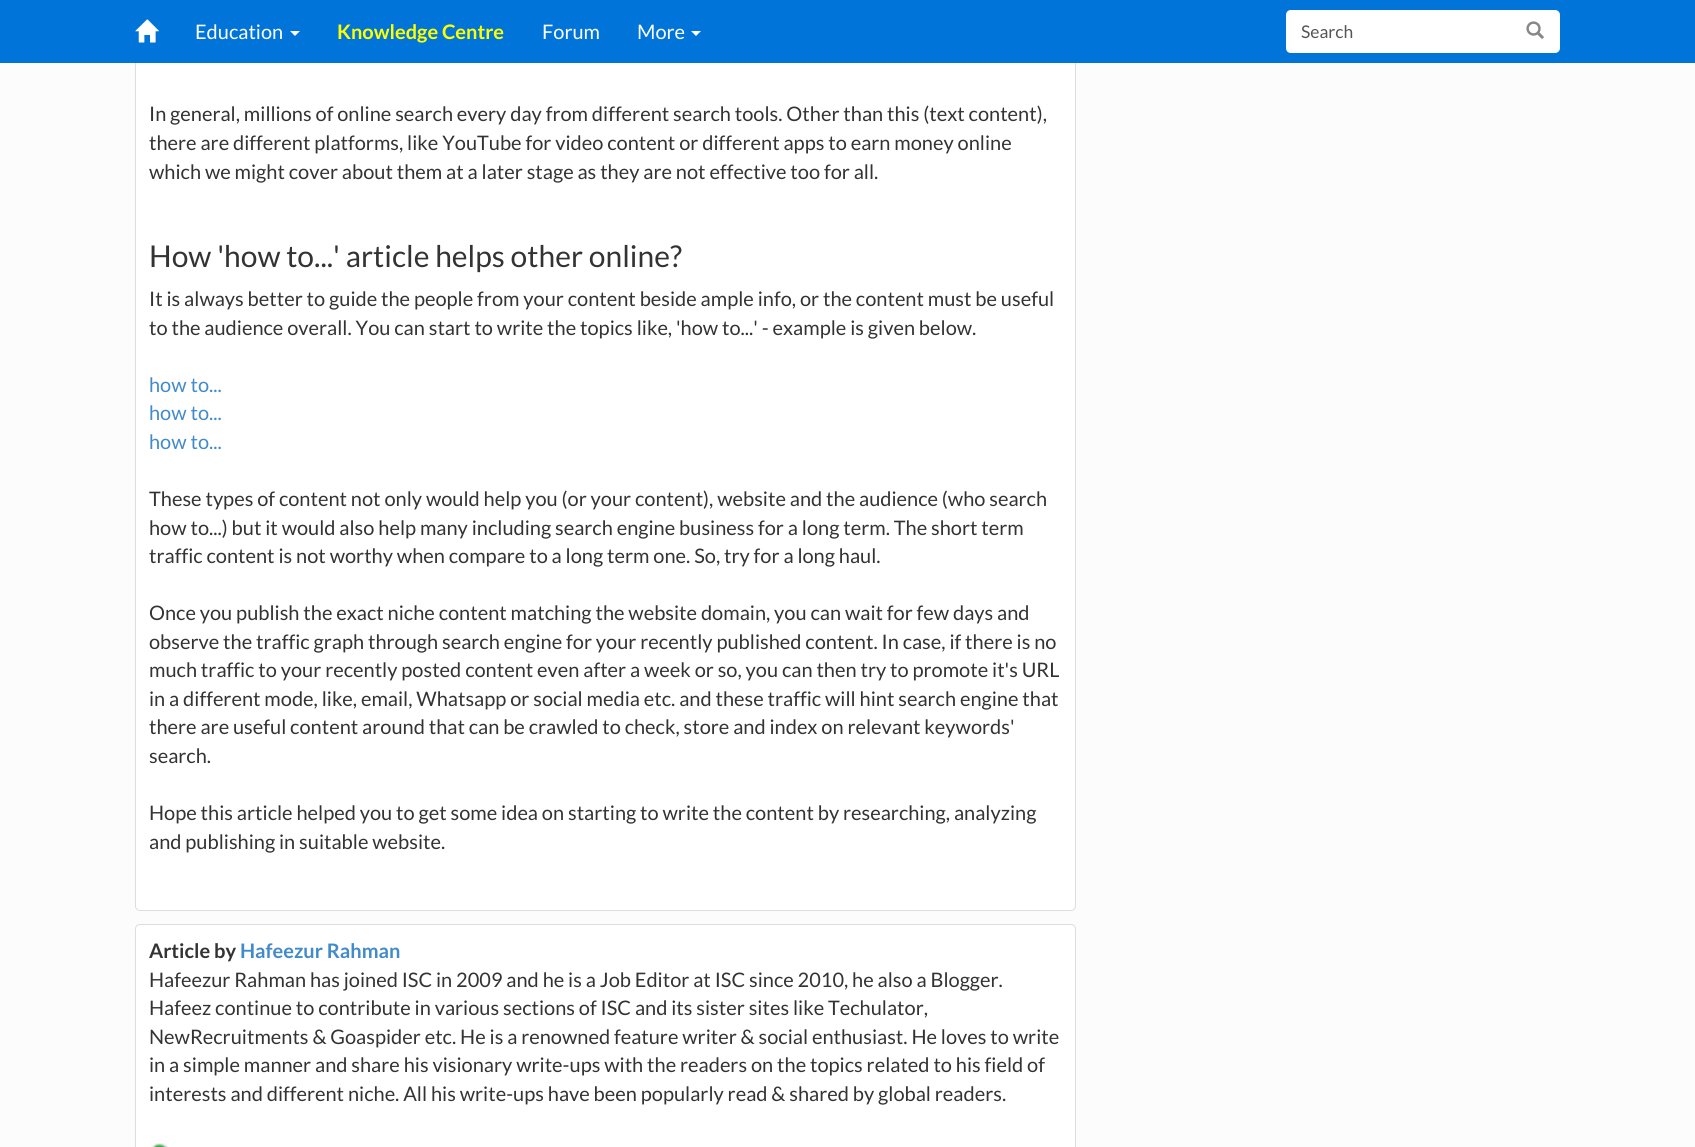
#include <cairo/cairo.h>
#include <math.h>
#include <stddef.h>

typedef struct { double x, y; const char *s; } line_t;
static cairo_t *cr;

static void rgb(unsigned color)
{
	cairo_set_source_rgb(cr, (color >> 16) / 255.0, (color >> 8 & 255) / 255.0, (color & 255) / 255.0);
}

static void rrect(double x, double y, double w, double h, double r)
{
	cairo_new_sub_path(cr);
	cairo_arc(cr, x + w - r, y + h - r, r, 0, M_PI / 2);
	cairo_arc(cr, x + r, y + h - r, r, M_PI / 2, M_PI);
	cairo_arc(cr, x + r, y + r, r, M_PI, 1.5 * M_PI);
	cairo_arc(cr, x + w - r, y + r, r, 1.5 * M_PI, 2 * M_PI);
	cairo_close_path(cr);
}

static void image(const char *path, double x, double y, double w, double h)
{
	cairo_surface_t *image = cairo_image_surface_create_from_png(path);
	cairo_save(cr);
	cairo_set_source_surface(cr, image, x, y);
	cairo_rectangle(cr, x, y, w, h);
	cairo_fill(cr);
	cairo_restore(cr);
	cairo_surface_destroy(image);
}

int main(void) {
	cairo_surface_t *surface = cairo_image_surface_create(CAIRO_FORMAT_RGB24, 1695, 1147);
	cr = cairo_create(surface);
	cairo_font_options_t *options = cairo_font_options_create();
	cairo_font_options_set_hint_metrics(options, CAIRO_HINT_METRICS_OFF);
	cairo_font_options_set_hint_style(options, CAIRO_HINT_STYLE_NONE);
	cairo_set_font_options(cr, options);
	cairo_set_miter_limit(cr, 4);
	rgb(0xfcfcfc);
	cairo_paint(cr);
	rgb(0xffffff);
	rrect(135.5, -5.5, 940, 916, 4.5);
	cairo_fill_preserve(cr);
	rgb(0xdddddd);
	cairo_set_line_width(cr, 1);
	cairo_stroke(cr);
	rgb(0x0074d9);
	cairo_rectangle(cr, 0, 0, 1695, 63);
	cairo_fill(cr);
	image("img/1.png", 135, 19, 24, 24);
	rgb(0xffffff);
	cairo_new_path(cr);
	cairo_move_to(cr, 290, 31);
	cairo_line_to(cr, 300, 31);
	cairo_line_to(cr, 295, 36);
	cairo_close_path(cr);
	cairo_fill(cr);
	cairo_new_path(cr);
	cairo_move_to(cr, 691, 31);
	cairo_line_to(cr, 701, 31);
	cairo_line_to(cr, 696, 36);
	cairo_close_path(cr);
	cairo_fill(cr);
	cairo_new_path(cr);
	cairo_move_to(cr, 1510.5, 10.5);
	cairo_line_to(cr, 1555, 10.5);
	cairo_curve_to(cr, 1557.5, 10.5, 1559.5, 12.5, 1559.5, 15);
	cairo_line_to(cr, 1559.5, 48);
	cairo_curve_to(cr, 1559.5, 50.5, 1557.5, 52.5, 1555, 52.5);
	cairo_line_to(cr, 1510.5, 52.5);
	cairo_close_path(cr);
	cairo_fill_preserve(cr);
	cairo_stroke(cr);
	cairo_new_path(cr);
	cairo_move_to(cr, 1291, 10);
	cairo_line_to(cr, 1511, 10);
	cairo_line_to(cr, 1511, 53);
	cairo_line_to(cr, 1291, 53);
	cairo_curve_to(cr, 1288, 53, 1286, 51, 1286, 48);
	cairo_line_to(cr, 1286, 15);
	cairo_curve_to(cr, 1286, 12, 1288, 10, 1291, 10);
	cairo_close_path(cr);
	cairo_fill(cr);
	image("img/2.png", 1526, 21, 18, 18);
	rrect(135.5, 924.5, 940, 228, 4.5);
	cairo_fill_preserve(cr);
	rgb(0xdddddd);
	cairo_stroke(cr);
	image("img/3.png", 151, 1143, 17, 4);
	cairo_select_font_face(cr, "Lato", CAIRO_FONT_SLANT_NORMAL, CAIRO_FONT_WEIGHT_NORMAL);
	cairo_set_font_size(cr, 20);
	rgb(0xffffff);
	cairo_move_to(cr, 195, 39);
	cairo_show_text(cr, "Education");
	cairo_select_font_face(cr, "Lato", CAIRO_FONT_SLANT_NORMAL, CAIRO_FONT_WEIGHT_BOLD);
	rgb(0xffff00);
	cairo_move_to(cr, 337, 39);
	cairo_show_text(cr, "Knowledge Centre");
	cairo_select_font_face(cr, "Lato", CAIRO_FONT_SLANT_NORMAL, CAIRO_FONT_WEIGHT_NORMAL);
	rgb(0xffffff);
	cairo_move_to(cr, 542, 39);
	cairo_show_text(cr, "Forum");
	cairo_move_to(cr, 637, 39);
	cairo_show_text(cr, "More");
	cairo_set_font_size(cr, 17.5);
	rgb(0x555555);
	cairo_move_to(cr, 1301, 38);
	cairo_show_text(cr, "Search");
	cairo_set_font_size(cr, 20);
	rgb(0x333333);
	{
		static const line_t items[] = {
			{149, 121, "In general, millions of online search every day from different search tools. Other than this (text content),"},
			{149, 150, "there are different platforms, like YouTube for video content or different apps to earn money online"},
			{149, 179, "which we might cover about them at a later stage as they are not effective too for all."},
		};
		for (size_t i = 0; i < sizeof items / sizeof *items; i++) {
			cairo_move_to(cr, items[i].x, items[i].y);
			cairo_show_text(cr, items[i].s);
		}
	}
	cairo_set_font_size(cr, 30);
	cairo_move_to(cr, 149, 267);
	cairo_show_text(cr, "How 'how to...' article helps other online?");
	cairo_set_font_size(cr, 20);
	cairo_move_to(cr, 149, 306);
	cairo_show_text(cr, "It is always better to guide the people from your content beside ample info, or the content must be useful");
	cairo_move_to(cr, 149, 335);
	cairo_show_text(cr, "to the audience overall. You can start to write the topics like, 'how to...' - example is given below.");
	rgb(0x428bca);
	{
		static const line_t items[] = {
			{149, 392, "how to..."},
			{149, 420, "how to..."},
			{149, 449, "how to..."},
		};
		for (size_t i = 0; i < sizeof items / sizeof *items; i++) {
			cairo_move_to(cr, items[i].x, items[i].y);
			cairo_show_text(cr, items[i].s);
		}
	}
	rgb(0x333333);
	{
		static const line_t items[] = {
			{149, 506, "These types of content not only would help you (or your content), website and the audience (who search"},
			{149, 535, "how to...) but it would also help many including search engine business for a long term. The short term"},
			{149, 563, "traffic content is not worthy when compare to a long term one. So, try for a long haul."},
			{149, 620, "Once you publish the exact niche content matching the website domain, you can wait for few days and"},
			{149, 649, "observe the traffic graph through search engine for your recently published content. In case, if there is no"},
			{149, 677, "much traffic to your recently posted content even after a week or so, you can then try to promote it's URL"},
			{149, 706, "in a different mode, like, email, Whatsapp or social media etc. and these traffic will hint search engine that"},
			{149, 734, "there are useful content around that can be crawled to check, store and index on relevant keywords'"},
			{149, 763, "search."},
			{149, 820, "Hope this article helped you to get some idea on starting to write the content by researching, analyzing"},
			{149, 849, "and publishing in suitable website."},
		};
		for (size_t i = 0; i < sizeof items / sizeof *items; i++) {
			cairo_move_to(cr, items[i].x, items[i].y);
			cairo_show_text(cr, items[i].s);
		}
	}
	cairo_select_font_face(cr, "Lato", CAIRO_FONT_SLANT_NORMAL, CAIRO_FONT_WEIGHT_BOLD);
	cairo_move_to(cr, 149, 958);
	cairo_show_text(cr, "Article by");
	rgb(0x428bca);
	cairo_move_to(cr, 240, 958);
	cairo_show_text(cr, "Hafeezur Rahman");
	cairo_select_font_face(cr, "Lato", CAIRO_FONT_SLANT_NORMAL, CAIRO_FONT_WEIGHT_NORMAL);
	rgb(0x333333);
	{
		static const line_t items[] = {
			{149, 987, "Hafeezur Rahman has joined ISC in 2009 and he is a Job Editor at ISC since 2010, he also a Blogger."},
			{149, 1015, "Hafeez continue to contribute in various sections of ISC and its sister sites like Techulator,"},
			{149, 1044, "NewRecruitments & Goaspider etc. He is a renowned feature writer & social enthusiast. He loves to write"},
			{149, 1072, "in a simple manner and share his visionary write-ups with the readers on the topics related to his field of"},
			{149, 1101, "interests and different niche. All his write-ups have been popularly read & shared by global readers."},
		};
		for (size_t i = 0; i < sizeof items / sizeof *items; i++) {
			cairo_move_to(cr, items[i].x, items[i].y);
			cairo_show_text(cr, items[i].s);
		}
	}
	cairo_surface_write_to_png(surface, "page.png");
	cairo_font_options_destroy(options);
	cairo_destroy(cr);
	cairo_surface_destroy(surface);
	return 0;
}
